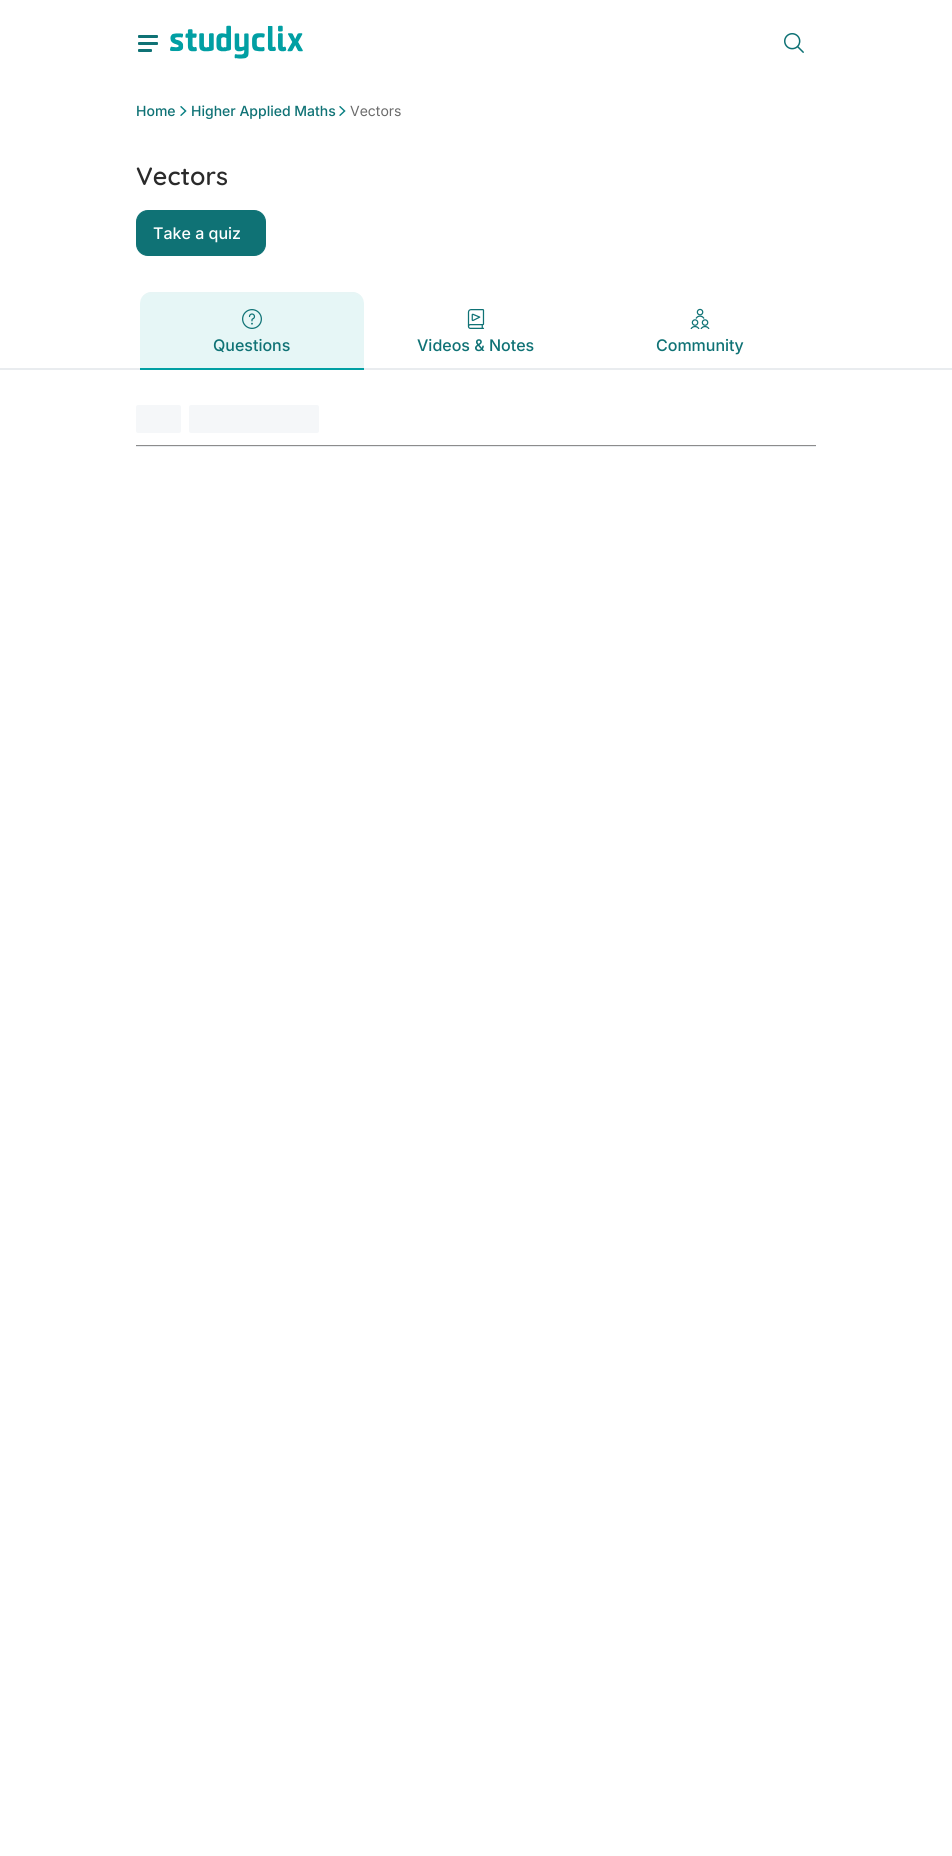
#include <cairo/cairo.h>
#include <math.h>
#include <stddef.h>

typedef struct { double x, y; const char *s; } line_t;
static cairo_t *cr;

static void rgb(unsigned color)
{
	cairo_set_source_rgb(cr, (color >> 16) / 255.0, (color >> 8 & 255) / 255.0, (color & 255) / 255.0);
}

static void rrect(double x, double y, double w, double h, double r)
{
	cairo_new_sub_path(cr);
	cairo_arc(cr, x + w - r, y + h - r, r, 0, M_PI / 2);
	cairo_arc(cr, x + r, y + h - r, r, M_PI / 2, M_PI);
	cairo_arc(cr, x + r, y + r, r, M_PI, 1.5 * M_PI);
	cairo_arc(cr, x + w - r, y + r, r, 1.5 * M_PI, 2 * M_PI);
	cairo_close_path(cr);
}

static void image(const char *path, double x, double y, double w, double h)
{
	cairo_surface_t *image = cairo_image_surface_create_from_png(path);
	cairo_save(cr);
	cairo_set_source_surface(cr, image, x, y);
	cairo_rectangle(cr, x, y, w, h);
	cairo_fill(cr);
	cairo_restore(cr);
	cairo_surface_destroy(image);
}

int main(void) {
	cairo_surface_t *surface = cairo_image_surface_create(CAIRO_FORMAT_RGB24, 952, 1856);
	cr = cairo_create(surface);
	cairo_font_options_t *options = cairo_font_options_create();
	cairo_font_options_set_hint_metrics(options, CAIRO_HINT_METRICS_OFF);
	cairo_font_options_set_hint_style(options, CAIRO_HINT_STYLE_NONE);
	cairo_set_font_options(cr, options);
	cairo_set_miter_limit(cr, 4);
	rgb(0xffffff);
	cairo_paint(cr);
	rgb(0x0f7275);
	rrect(138, 35, 20, 3, 1);
	cairo_fill(cr);
	rrect(138, 42, 20, 3, 1);
	cairo_fill(cr);
	rrect(138, 49, 14, 3, 1);
	cairo_fill(cr);
	image("img/1.png", 170, 25, 133, 34);
	image("img/2.png", 784, 33, 20, 20);
	image("img/3.png", 180, 106, 7, 10);
	image("img/3.png", 339, 106, 7, 10);
	rrect(136.5, 210.5, 129, 45, 11.5);
	cairo_fill_preserve(cr);
	cairo_set_line_width(cr, 1);
	cairo_stroke(cr);
	rgb(0xe9ecef);
	cairo_rectangle(cr, 0, 368, 952, 2);
	cairo_fill(cr);
	rgb(0xe6f6f6);
	cairo_new_path(cr);
	cairo_move_to(cr, 152, 292);
	cairo_line_to(cr, 352, 292);
	cairo_curve_to(cr, 358.5, 292, 364, 297.5, 364, 304);
	cairo_line_to(cr, 364, 370);
	cairo_line_to(cr, 140, 370);
	cairo_line_to(cr, 140, 304);
	cairo_curve_to(cr, 140, 297.5, 145.5, 292, 152, 292);
	cairo_close_path(cr);
	cairo_fill(cr);
	rgb(0xe7f5f5);
	cairo_new_path(cr);
	cairo_move_to(cr, 152, 292);
	cairo_curve_to(cr, 145, 292, 140, 297, 140, 304);
	cairo_curve_to(cr, 140, 298, 145, 294, 152, 294);
	cairo_line_to(cr, 352, 294);
	cairo_curve_to(cr, 359, 294, 364, 298, 364, 304);
	cairo_curve_to(cr, 364, 297, 359, 292, 352, 292);
	cairo_close_path(cr);
	cairo_fill(cr);
	rgb(0x019fa3);
	cairo_rectangle(cr, 140, 368, 224, 2);
	cairo_fill(cr);
	image("img/4.png", 242, 309, 20, 20);
	image("img/5.png", 467, 309, 18, 20);
	image("img/6.png", 690, 308, 20, 21);
	rgb(0xf5f7f9);
	rrect(136, 405, 45, 28, 2);
	cairo_fill(cr);
	rrect(189, 405, 130, 28, 2);
	cairo_fill(cr);
	rgb(0x8c8c8c);
	cairo_rectangle(cr, 136, 445, 680, 1);
	cairo_fill(cr);
	rgb(0xe9ecef);
	cairo_rectangle(cr, 136, 446, 680, 1);
	cairo_fill(cr);
	cairo_select_font_face(cr, "Inter Medium", CAIRO_FONT_SLANT_NORMAL, CAIRO_FONT_WEIGHT_NORMAL);
	cairo_set_font_size(cr, 14);
	rgb(0x0f7275);
	cairo_move_to(cr, 136, 116);
	cairo_show_text(cr, "Home");
	cairo_move_to(cr, 191, 116);
	cairo_show_text(cr, "Higher Applied Maths");
	cairo_select_font_face(cr, "Inter", CAIRO_FONT_SLANT_NORMAL, CAIRO_FONT_WEIGHT_NORMAL);
	rgb(0x6b6b6b);
	cairo_move_to(cr, 350, 116);
	cairo_show_text(cr, "Vectors");
	cairo_select_font_face(cr, "Quicksand SemiBold", CAIRO_FONT_SLANT_NORMAL, CAIRO_FONT_WEIGHT_NORMAL);
	cairo_set_font_size(cr, 25);
	rgb(0x2a2a2a);
	cairo_move_to(cr, 136, 185);
	cairo_show_text(cr, "Vectors");
	cairo_select_font_face(cr, "Inter Medium", CAIRO_FONT_SLANT_NORMAL, CAIRO_FONT_WEIGHT_NORMAL);
	cairo_set_font_size(cr, 16);
	rgb(0xffffff);
	cairo_move_to(cr, 153, 239);
	cairo_show_text(cr, "Take a quiz");
	rgb(0x0f7275);
	{
		static const line_t items[] = {
			{213, 351, "Questions"},
			{417, 351, "Videos & Notes"},
			{656, 351, "Community"},
		};
		for (size_t i = 0; i < sizeof items / sizeof *items; i++) {
			cairo_move_to(cr, items[i].x, items[i].y);
			cairo_show_text(cr, items[i].s);
		}
	}
	cairo_surface_write_to_png(surface, "page.png");
	cairo_font_options_destroy(options);
	cairo_destroy(cr);
	cairo_surface_destroy(surface);
	return 0;
}
